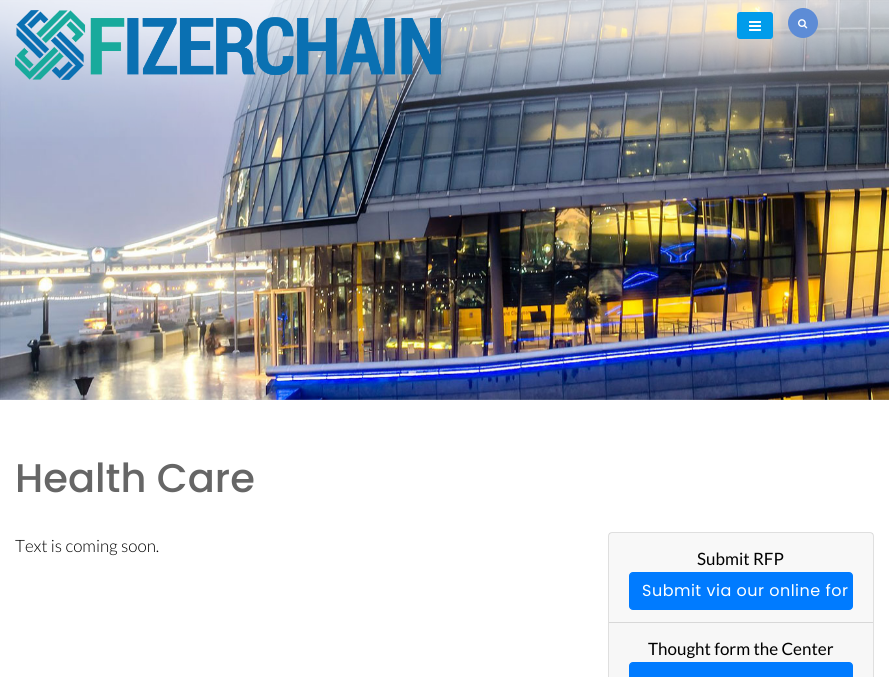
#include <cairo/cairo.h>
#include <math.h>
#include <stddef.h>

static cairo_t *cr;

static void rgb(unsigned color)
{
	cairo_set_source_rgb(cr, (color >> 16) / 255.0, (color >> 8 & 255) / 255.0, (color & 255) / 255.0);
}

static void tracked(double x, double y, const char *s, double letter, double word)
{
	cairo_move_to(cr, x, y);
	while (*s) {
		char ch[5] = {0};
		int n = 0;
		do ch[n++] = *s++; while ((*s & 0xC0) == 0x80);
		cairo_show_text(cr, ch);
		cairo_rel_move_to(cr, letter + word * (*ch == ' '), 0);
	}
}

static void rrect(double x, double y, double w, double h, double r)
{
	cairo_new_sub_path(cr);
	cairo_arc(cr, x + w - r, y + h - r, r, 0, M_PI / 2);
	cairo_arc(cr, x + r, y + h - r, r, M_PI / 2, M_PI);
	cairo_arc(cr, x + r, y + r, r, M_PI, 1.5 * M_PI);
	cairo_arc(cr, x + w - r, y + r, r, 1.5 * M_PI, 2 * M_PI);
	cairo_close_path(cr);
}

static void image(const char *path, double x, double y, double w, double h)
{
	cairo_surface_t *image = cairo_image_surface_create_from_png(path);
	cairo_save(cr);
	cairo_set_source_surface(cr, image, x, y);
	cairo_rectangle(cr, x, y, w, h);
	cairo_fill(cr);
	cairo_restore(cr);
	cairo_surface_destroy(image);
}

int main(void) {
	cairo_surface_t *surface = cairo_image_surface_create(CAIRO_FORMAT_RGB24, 889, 677);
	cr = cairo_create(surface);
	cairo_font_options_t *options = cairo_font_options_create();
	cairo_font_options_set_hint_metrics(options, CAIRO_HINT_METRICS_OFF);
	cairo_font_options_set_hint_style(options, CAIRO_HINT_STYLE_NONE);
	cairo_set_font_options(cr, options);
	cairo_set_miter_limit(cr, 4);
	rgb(0xffffff);
	cairo_paint(cr);
	image("img/1.png", 0, 0, 889, 400);
	image("img/2.png", 0, 0, 889, 137);
	image("img/3.png", 15, 10, 426, 70);
	rgb(0x009ceb);
	rrect(737, 12, 36, 27, 3);
	cairo_fill(cr);
	image("img/4.png", 749, 21, 12, 10);
	rgb(0x5d8cd6);
	cairo_arc(cr, 803, 23, 15, 0, 2 * M_PI);
	cairo_fill(cr);
	image("img/5.png", 798, 19, 10, 10);
	rrect(608.5, 532.5, 265, 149, 3.5);
	rgb(0xdfdfdf);
	cairo_set_line_width(cr, 1);
	cairo_stroke(cr);
	cairo_set_source_rgba(cr, 0, 0, 0, 0.03);
	cairo_rectangle(cr, 609, 533, 264, 89);
	cairo_fill(cr);
	rgb(0xd8d8d8);
	cairo_rectangle(cr, 609, 622, 264, 1);
	cairo_fill(cr);
	rgb(0x007bff);
	rrect(629.5, 572.5, 223, 37, 3.5);
	cairo_fill_preserve(cr);
	cairo_stroke(cr);
	rgb(0xf7f7f7);
	cairo_rectangle(cr, 609, 623, 264, 54);
	cairo_fill(cr);
	rgb(0x007bff);
	rrect(629.5, 662.5, 223, 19, 3.5);
	cairo_fill_preserve(cr);
	cairo_stroke(cr);
	cairo_select_font_face(cr, "Poppins Medium", CAIRO_FONT_SLANT_NORMAL, CAIRO_FONT_WEIGHT_NORMAL);
	cairo_set_font_size(cr, 40);
	rgb(0x666666);
	cairo_move_to(cr, 15, 492);
	cairo_show_text(cr, "Health Care");
	cairo_select_font_face(cr, "Lato Light", CAIRO_FONT_SLANT_NORMAL, CAIRO_FONT_WEIGHT_NORMAL);
	cairo_set_font_size(cr, 17);
	rgb(0x000000);
	cairo_move_to(cr, 15, 552);
	cairo_show_text(cr, "Text is coming soon.");
	cairo_select_font_face(cr, "Lato", CAIRO_FONT_SLANT_NORMAL, CAIRO_FONT_WEIGHT_NORMAL);
	cairo_move_to(cr, 697, 565);
	cairo_show_text(cr, "Submit RFP");
	cairo_select_font_face(cr, "Poppins", CAIRO_FONT_SLANT_NORMAL, CAIRO_FONT_WEIGHT_NORMAL);
	cairo_set_font_size(cr, 16);
	rgb(0xffffff);
	tracked(642, 596, "Submit via our online for", 0.5, 0);
	cairo_select_font_face(cr, "Lato", CAIRO_FONT_SLANT_NORMAL, CAIRO_FONT_WEIGHT_NORMAL);
	cairo_set_font_size(cr, 17);
	rgb(0x000000);
	cairo_move_to(cr, 648, 655);
	cairo_show_text(cr, "Thought form the Center");
	cairo_surface_write_to_png(surface, "page.png");
	cairo_font_options_destroy(options);
	cairo_destroy(cr);
	cairo_surface_destroy(surface);
	return 0;
}
